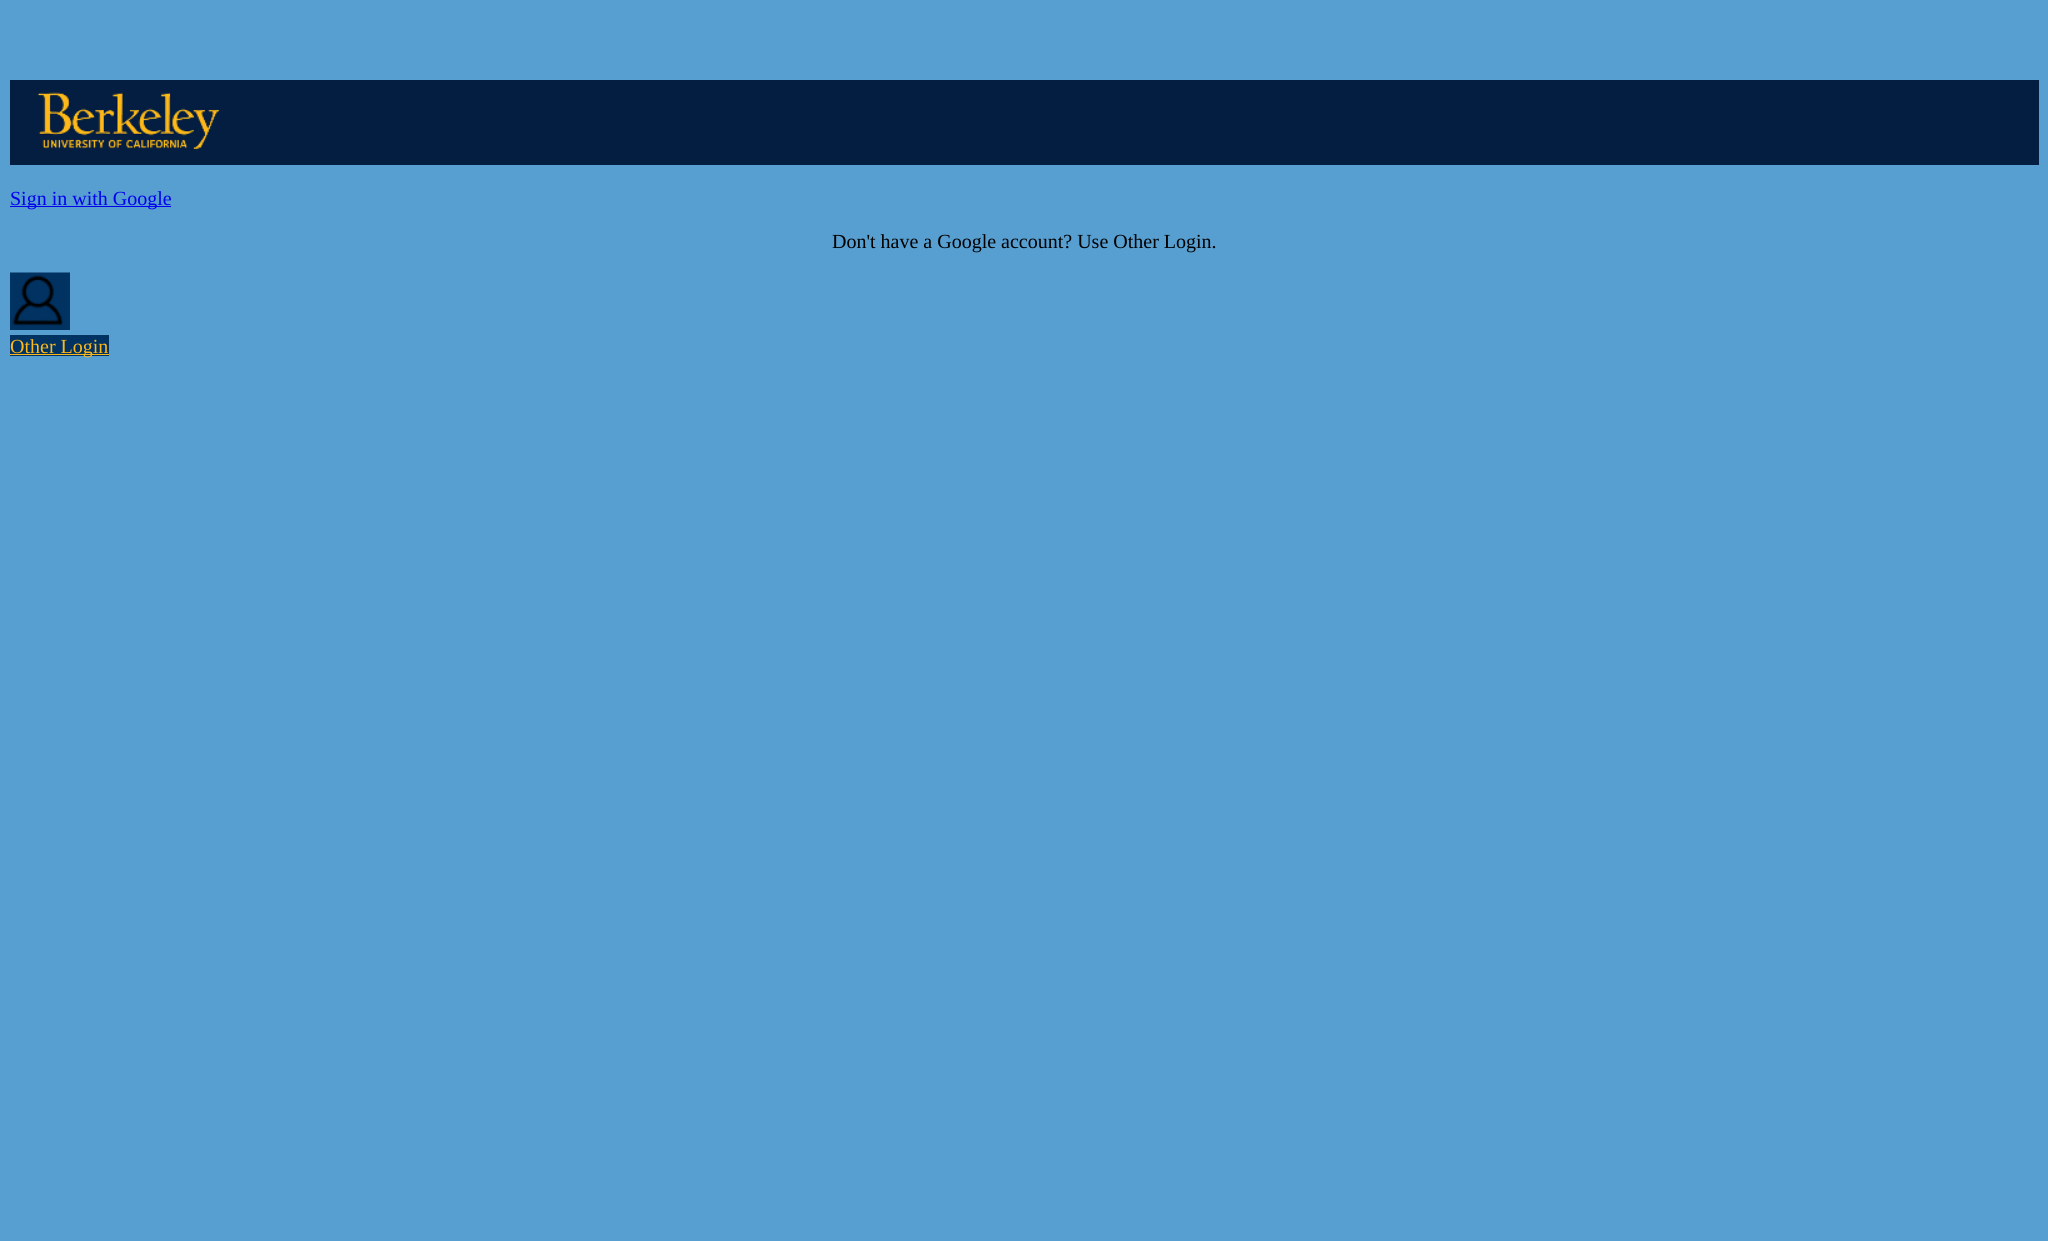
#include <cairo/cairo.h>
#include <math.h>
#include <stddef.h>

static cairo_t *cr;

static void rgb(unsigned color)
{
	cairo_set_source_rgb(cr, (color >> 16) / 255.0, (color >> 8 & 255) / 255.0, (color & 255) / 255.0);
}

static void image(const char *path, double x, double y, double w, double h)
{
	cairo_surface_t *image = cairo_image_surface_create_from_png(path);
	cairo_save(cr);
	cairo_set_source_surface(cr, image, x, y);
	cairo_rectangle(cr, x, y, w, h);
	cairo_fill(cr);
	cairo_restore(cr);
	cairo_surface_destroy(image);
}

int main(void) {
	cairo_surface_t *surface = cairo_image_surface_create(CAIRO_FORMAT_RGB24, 2048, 1241);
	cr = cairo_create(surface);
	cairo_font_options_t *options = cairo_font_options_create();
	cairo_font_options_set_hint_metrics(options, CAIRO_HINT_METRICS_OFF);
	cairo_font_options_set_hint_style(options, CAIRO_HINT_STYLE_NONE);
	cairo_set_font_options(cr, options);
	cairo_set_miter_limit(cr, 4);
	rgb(0x579fd1);
	cairo_paint(cr);
	rgb(0x041e41);
	cairo_rectangle(cr, 10, 80, 2029, 85);
	cairo_fill(cr);
	image("img/1.png", 37, 92, 183, 58);
	rgb(0x0000ee);
	cairo_rectangle(cr, 10, 206, 161, 1);
	cairo_fill(cr);
	rgb(0x003262);
	cairo_rectangle(cr, 10, 335, 99, 21);
	cairo_fill(cr);
	image("img/2.png", 10, 272, 60, 58);
	rgb(0xffb819);
	cairo_rectangle(cr, 10, 354, 99, 1);
	cairo_fill(cr);
	cairo_select_font_face(cr, "Liberation Serif", CAIRO_FONT_SLANT_NORMAL, CAIRO_FONT_WEIGHT_NORMAL);
	cairo_set_font_size(cr, 20);
	rgb(0x0000ee);
	cairo_move_to(cr, 10, 205);
	cairo_show_text(cr, "Sign in with Google");
	rgb(0x000000);
	cairo_move_to(cr, 832, 248);
	cairo_show_text(cr, "Don't have a Google account? Use Other Login.");
	rgb(0xffb819);
	cairo_move_to(cr, 10, 353);
	cairo_show_text(cr, "Other Login");
	cairo_surface_write_to_png(surface, "page.png");
	cairo_font_options_destroy(options);
	cairo_destroy(cr);
	cairo_surface_destroy(surface);
	return 0;
}
